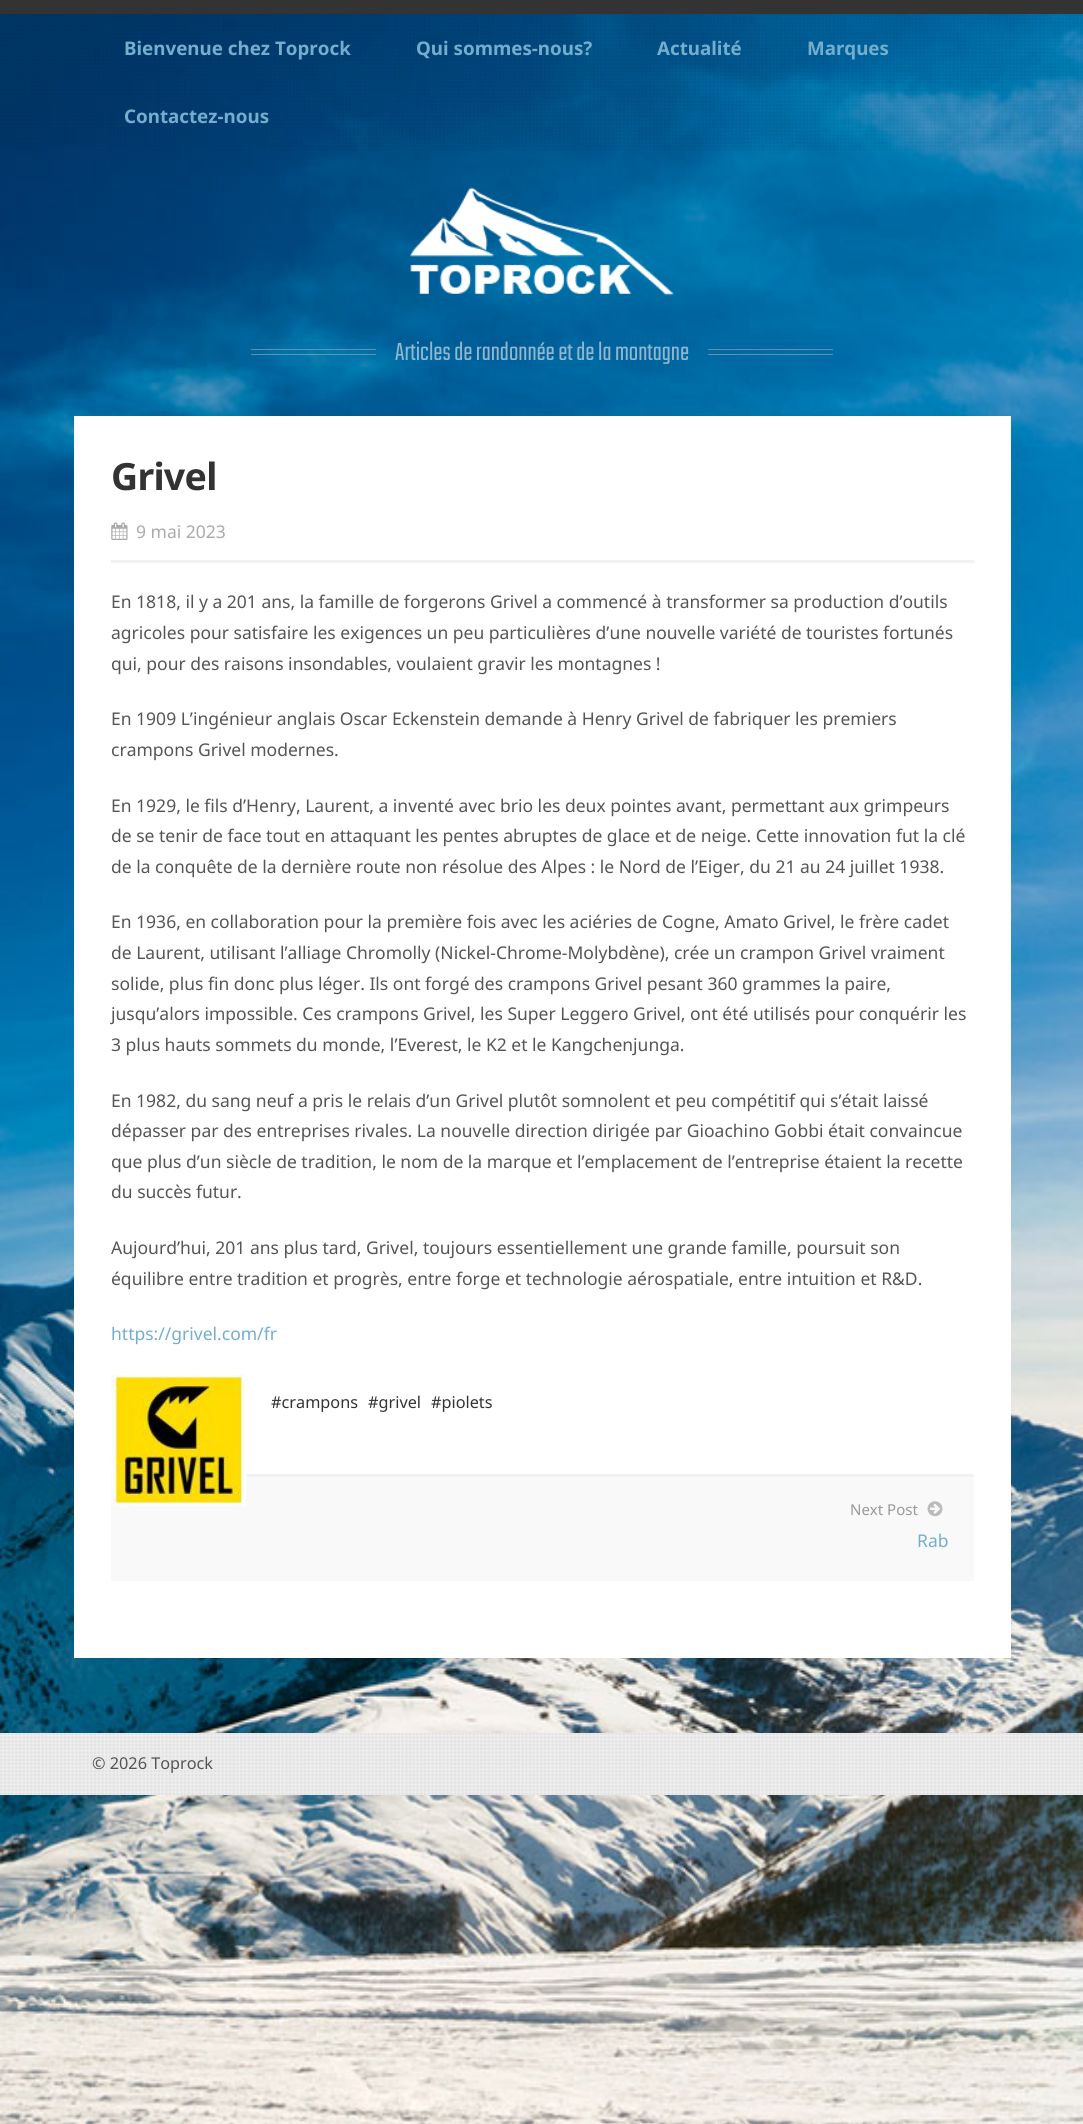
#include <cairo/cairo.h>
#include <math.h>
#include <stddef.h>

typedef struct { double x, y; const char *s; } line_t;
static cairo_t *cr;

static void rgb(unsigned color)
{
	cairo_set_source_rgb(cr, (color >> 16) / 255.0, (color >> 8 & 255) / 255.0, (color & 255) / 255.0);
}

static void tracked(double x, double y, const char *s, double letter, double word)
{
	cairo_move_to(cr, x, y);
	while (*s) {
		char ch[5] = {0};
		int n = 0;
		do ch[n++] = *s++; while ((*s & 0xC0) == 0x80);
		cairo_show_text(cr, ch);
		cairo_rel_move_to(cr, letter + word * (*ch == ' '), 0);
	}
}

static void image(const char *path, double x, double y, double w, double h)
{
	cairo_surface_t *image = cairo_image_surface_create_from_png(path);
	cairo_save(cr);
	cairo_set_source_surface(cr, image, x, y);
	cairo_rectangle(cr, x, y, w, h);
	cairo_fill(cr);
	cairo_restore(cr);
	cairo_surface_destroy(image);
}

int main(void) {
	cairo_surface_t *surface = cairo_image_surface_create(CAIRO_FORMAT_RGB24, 1083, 2124);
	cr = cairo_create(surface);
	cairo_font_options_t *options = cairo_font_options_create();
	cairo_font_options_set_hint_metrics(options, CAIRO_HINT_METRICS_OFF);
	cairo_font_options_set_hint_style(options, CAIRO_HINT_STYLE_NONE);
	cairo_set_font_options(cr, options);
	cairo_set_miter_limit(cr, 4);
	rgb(0xffffff);
	cairo_paint(cr);
	image("img/1.png", 0, 14, 1083, 2110);
	rgb(0x333333);
	cairo_rectangle(cr, 0, 0, 1083, 14);
	cairo_fill(cr);
	image("img/2.png", 0, 14, 1083, 136);
	image("img/3.png", 410, 187, 264, 109);
	cairo_set_source_rgba(cr, 0.667, 0.667, 0.667, 0.6);
	cairo_rectangle(cr, 251, 349, 125, 1);
	cairo_fill(cr);
	cairo_rectangle(cr, 251, 354, 125, 1);
	cairo_fill(cr);
	cairo_rectangle(cr, 708, 349, 125, 1);
	cairo_fill(cr);
	cairo_rectangle(cr, 708, 354, 125, 1);
	cairo_fill(cr);
	rgb(0xffffff);
	cairo_rectangle(cr, 74, 416, 937, 1242);
	cairo_fill(cr);
	rgb(0xf2f2f2);
	cairo_rectangle(cr, 111, 560, 863, 3);
	cairo_fill(cr);
	image("img/4.png", 111, 522, 17, 18);
	rgb(0xf9f9f9);
	cairo_rectangle(cr, 111, 1477, 863, 104);
	cairo_fill(cr);
	rgb(0xf2f2f2);
	cairo_rectangle(cr, 111, 1474, 863, 3);
	cairo_fill(cr);
	image("img/5.png", 111, 1375, 136, 131);
	image("img/6.png", 927, 1501, 16, 16);
	rgb(0xeeeeee);
	cairo_rectangle(cr, 0, 1733, 1083, 62);
	cairo_fill(cr);
	image("img/7.png", 0, 1733, 1083, 62);
	cairo_select_font_face(cr, "Noto Sans", CAIRO_FONT_SLANT_NORMAL, CAIRO_FONT_WEIGHT_BOLD);
	cairo_set_font_size(cr, 18.75);
	rgb(0x73aece);
	{
		static const line_t items[] = {
			{124, 55, "Bienvenue chez Toprock"},
			{416, 55, "Qui sommes-nous?"},
			{657, 55, "Actualité"},
			{807, 55, "Marques"},
			{124, 123, "Contactez-nous"},
		};
		for (size_t i = 0; i < sizeof items / sizeof *items; i++) {
			cairo_move_to(cr, items[i].x, items[i].y);
			cairo_show_text(cr, items[i].s);
		}
	}
	cairo_select_font_face(cr, "Teko Light", CAIRO_FONT_SLANT_NORMAL, CAIRO_FONT_WEIGHT_NORMAL);
	cairo_set_font_size(cr, 27.5);
	rgb(0x90b7cf);
	cairo_move_to(cr, 395, 360);
	cairo_show_text(cr, "Articles de randonnée et de la montagne");
	cairo_select_font_face(cr, "Noto Sans", CAIRO_FONT_SLANT_NORMAL, CAIRO_FONT_WEIGHT_BOLD);
	cairo_set_font_size(cr, 37.5);
	rgb(0x333333);
	tracked(111, 490, "Grivel", -0.75, 0);
	cairo_select_font_face(cr, "Noto Sans", CAIRO_FONT_SLANT_NORMAL, CAIRO_FONT_WEIGHT_NORMAL);
	cairo_set_font_size(cr, 17.5);
	rgb(0xaaaaaa);
	cairo_move_to(cr, 136, 538);
	cairo_show_text(cr, "9 mai 2023");
	rgb(0x555555);
	{
		static const line_t items[] = {
			{111, 608, "En 1818, il y a 201 ans, la famille de forgerons Grivel a commencé à transformer sa production d’outils"},
			{111, 639, "agricoles pour satisfaire les exigences un peu particulières d’une nouvelle variété de touristes fortunés"},
			{111, 670, "qui, pour des raisons insondables, voulaient gravir les montagnes !"},
			{111, 725, "En 1909 L’ingénieur anglais Oscar Eckenstein demande à Henry Grivel de fabriquer les premiers"},
			{111, 756, "crampons Grivel modernes."},
			{111, 812, "En 1929, le fils d’Henry, Laurent, a inventé avec brio les deux pointes avant, permettant aux grimpeurs"},
			{111, 842, "de se tenir de face tout en attaquant les pentes abruptes de glace et de neige. Cette innovation fut la clé"},
			{111, 873, "de la conquête de la dernière route non résolue des Alpes : le Nord de l’Eiger, du 21 au 24 juillet 1938."},
			{111, 928, "En 1936, en collaboration pour la première fois avec les aciéries de Cogne, Amato Grivel, le frère cadet"},
			{111, 959, "de Laurent, utilisant l’alliage Chromolly (Nickel-Chrome-Molybdène), crée un crampon Grivel vraiment"},
			{111, 990, "solide, plus fin donc plus léger. Ils ont forgé des crampons Grivel pesant 360 grammes la paire,"},
			{111, 1020, "jusqu’alors impossible. Ces crampons Grivel, les Super Leggero Grivel, ont été utilisés pour conquérir les"},
			{111, 1051, "3 plus hauts sommets du monde, l’Everest, le K2 et le Kangchenjunga."},
			{111, 1107, "En 1982, du sang neuf a pris le relais d’un Grivel plutôt somnolent et peu compétitif qui s’était laissé"},
			{111, 1137, "dépasser par des entreprises rivales. La nouvelle direction dirigée par Gioachino Gobbi était convaincue"},
			{111, 1168, "que plus d’un siècle de tradition, le nom de la marque et l’emplacement de l’entreprise étaient la recette"},
			{111, 1198, "du succès futur."},
			{111, 1254, "Aujourd’hui, 201 ans plus tard, Grivel, toujours essentiellement une grande famille, poursuit son"},
			{111, 1285, "équilibre entre tradition et progrès, entre forge et technologie aérospatiale, entre intuition et R&D."},
		};
		for (size_t i = 0; i < sizeof items / sizeof *items; i++) {
			cairo_move_to(cr, items[i].x, items[i].y);
			cairo_show_text(cr, items[i].s);
		}
	}
	rgb(0x73aece);
	cairo_move_to(cr, 111, 1340);
	cairo_show_text(cr, "https://grivel.com/fr");
	cairo_set_font_size(cr, 16.25);
	rgb(0x333333);
	{
		static const line_t items[] = {
			{271, 1408, "#crampons"},
			{368, 1408, "#grivel"},
			{431, 1408, "#piolets"},
		};
		for (size_t i = 0; i < sizeof items / sizeof *items; i++) {
			cairo_move_to(cr, items[i].x, items[i].y);
			cairo_show_text(cr, items[i].s);
		}
	}
	cairo_set_font_size(cr, 15);
	rgb(0x999999);
	cairo_move_to(cr, 850, 1515);
	cairo_show_text(cr, "Next Post");
	cairo_set_font_size(cr, 17.5);
	rgb(0x73aece);
	cairo_move_to(cr, 917, 1547);
	cairo_show_text(cr, "Rab");
	cairo_set_font_size(cr, 16.25);
	rgb(0x555555);
	cairo_move_to(cr, 92, 1769);
	cairo_show_text(cr, "© 2026 Toprock");
	cairo_surface_write_to_png(surface, "page.png");
	cairo_font_options_destroy(options);
	cairo_destroy(cr);
	cairo_surface_destroy(surface);
	return 0;
}
